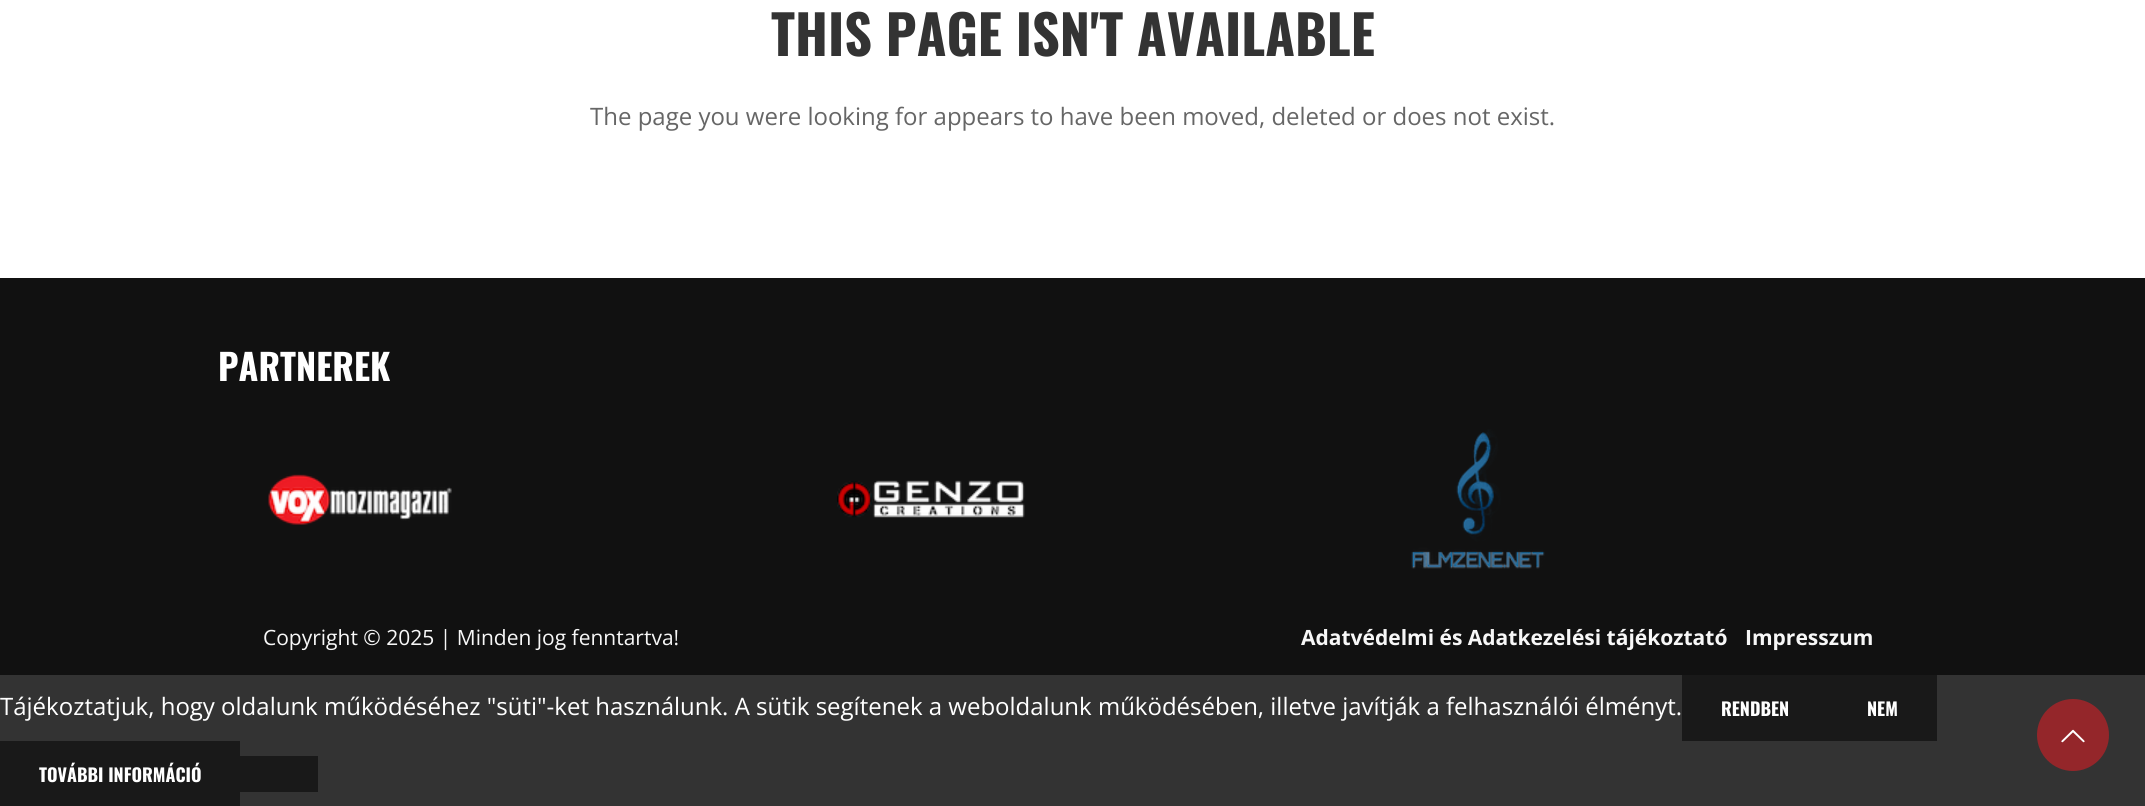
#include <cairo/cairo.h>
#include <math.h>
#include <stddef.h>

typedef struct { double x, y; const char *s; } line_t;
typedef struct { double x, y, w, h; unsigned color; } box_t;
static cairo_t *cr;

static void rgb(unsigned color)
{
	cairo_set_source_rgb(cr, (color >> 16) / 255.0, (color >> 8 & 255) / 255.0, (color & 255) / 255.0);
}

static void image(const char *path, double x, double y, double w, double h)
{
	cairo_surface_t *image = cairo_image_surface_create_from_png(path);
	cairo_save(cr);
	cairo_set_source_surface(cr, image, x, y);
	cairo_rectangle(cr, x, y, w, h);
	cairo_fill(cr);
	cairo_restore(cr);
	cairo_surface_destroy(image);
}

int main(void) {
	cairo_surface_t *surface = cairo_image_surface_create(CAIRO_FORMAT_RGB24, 2145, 806);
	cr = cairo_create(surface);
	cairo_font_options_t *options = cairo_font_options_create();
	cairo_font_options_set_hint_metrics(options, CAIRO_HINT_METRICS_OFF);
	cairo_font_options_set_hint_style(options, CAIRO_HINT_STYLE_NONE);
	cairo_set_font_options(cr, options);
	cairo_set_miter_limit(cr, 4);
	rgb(0xffffff);
	cairo_paint(cr);
	rgb(0x111111);
	cairo_rectangle(cr, 0, 278, 2145, 397);
	cairo_fill(cr);
	image("img/1.png", 268, 474, 184, 51);
	image("img/2.png", 837, 480, 188, 38);
	image("img/3.png", 1411, 429, 134, 140);
	{
		static const box_t items[] = {
			{0, 675, 2145, 131, 0x333333},
			{1682, 675, 255, 66, 0x191919},
			{0, 741, 240, 65, 0x191919},
			{240, 756, 78, 36, 0x191919},
		};
		for (size_t i = 0; i < sizeof items / sizeof *items; i++) {
			rgb(items[i].color);
			cairo_rectangle(cr, items[i].x, items[i].y, items[i].w, items[i].h);
			cairo_fill(cr);
		}
	}
	rgb(0x94262a);
	cairo_arc(cr, 2073, 735, 36, 0, 2 * M_PI);
	cairo_fill(cr);
	image("img/4.png", 2061, 729, 24, 14);
	cairo_select_font_face(cr, "Oswald", CAIRO_FONT_SLANT_NORMAL, CAIRO_FONT_WEIGHT_BOLD);
	cairo_set_font_size(cr, 54);
	rgb(0x333333);
	cairo_move_to(cr, 771, 56);
	cairo_show_text(cr, "THIS PAGE ISN'T AVAILABLE");
	cairo_select_font_face(cr, "Open Sans", CAIRO_FONT_SLANT_NORMAL, CAIRO_FONT_WEIGHT_NORMAL);
	cairo_set_font_size(cr, 24);
	rgb(0x666666);
	cairo_move_to(cr, 590, 125);
	cairo_show_text(cr, "The page you were looking for appears to have been moved, deleted or does not exist.");
	cairo_select_font_face(cr, "Oswald", CAIRO_FONT_SLANT_NORMAL, CAIRO_FONT_WEIGHT_BOLD);
	cairo_set_font_size(cr, 36);
	rgb(0xffffff);
	cairo_move_to(cr, 218, 381);
	cairo_show_text(cr, "PARTNEREK");
	cairo_select_font_face(cr, "Open Sans", CAIRO_FONT_SLANT_NORMAL, CAIRO_FONT_WEIGHT_NORMAL);
	cairo_set_font_size(cr, 21);
	rgb(0xf7f7f7);
	cairo_move_to(cr, 263, 645);
	cairo_show_text(cr, "Copyright © 2025 | Minden jog fenntartva!");
	cairo_select_font_face(cr, "Open Sans", CAIRO_FONT_SLANT_NORMAL, CAIRO_FONT_WEIGHT_BOLD);
	cairo_move_to(cr, 1301, 645);
	cairo_show_text(cr, "Adatvédelmi és Adatkezelési tájékoztató");
	cairo_move_to(cr, 1745, 645);
	cairo_show_text(cr, "Impresszum");
	cairo_select_font_face(cr, "Open Sans", CAIRO_FONT_SLANT_NORMAL, CAIRO_FONT_WEIGHT_NORMAL);
	cairo_set_font_size(cr, 24);
	rgb(0xffffff);
	cairo_move_to(cr, 0, 715);
	cairo_show_text(cr, "Tájékoztatjuk, hogy oldalunk működéséhez \"süti\"-ket használunk. A sütik segítenek a weboldalunk működésében, illetve javítják a felhasználói élményt.");
	cairo_select_font_face(cr, "Oswald", CAIRO_FONT_SLANT_NORMAL, CAIRO_FONT_WEIGHT_BOLD);
	cairo_set_font_size(cr, 18);
	{
		static const line_t items[] = {
			{1721, 716, "RENDBEN"},
			{1867, 716, "NEM"},
			{39, 782, "TOVÁBBI INFORMÁCIÓ"},
		};
		for (size_t i = 0; i < sizeof items / sizeof *items; i++) {
			cairo_move_to(cr, items[i].x, items[i].y);
			cairo_show_text(cr, items[i].s);
		}
	}
	cairo_surface_write_to_png(surface, "page.png");
	cairo_font_options_destroy(options);
	cairo_destroy(cr);
	cairo_surface_destroy(surface);
	return 0;
}
